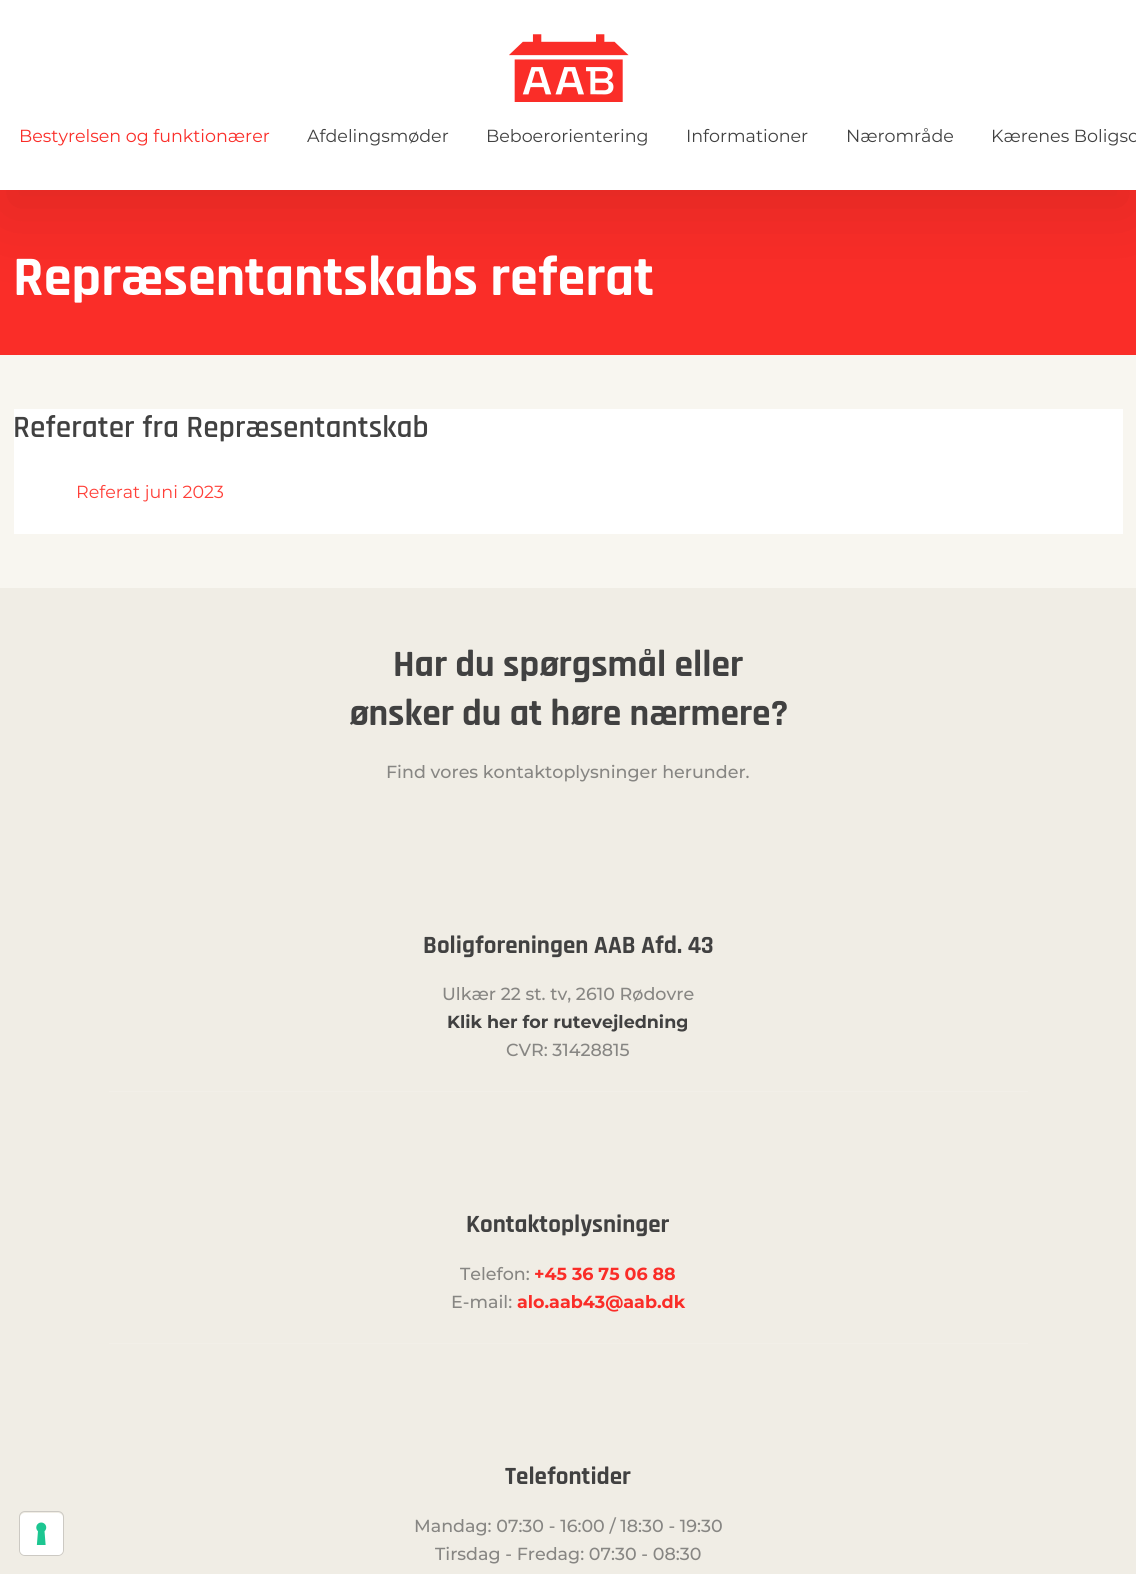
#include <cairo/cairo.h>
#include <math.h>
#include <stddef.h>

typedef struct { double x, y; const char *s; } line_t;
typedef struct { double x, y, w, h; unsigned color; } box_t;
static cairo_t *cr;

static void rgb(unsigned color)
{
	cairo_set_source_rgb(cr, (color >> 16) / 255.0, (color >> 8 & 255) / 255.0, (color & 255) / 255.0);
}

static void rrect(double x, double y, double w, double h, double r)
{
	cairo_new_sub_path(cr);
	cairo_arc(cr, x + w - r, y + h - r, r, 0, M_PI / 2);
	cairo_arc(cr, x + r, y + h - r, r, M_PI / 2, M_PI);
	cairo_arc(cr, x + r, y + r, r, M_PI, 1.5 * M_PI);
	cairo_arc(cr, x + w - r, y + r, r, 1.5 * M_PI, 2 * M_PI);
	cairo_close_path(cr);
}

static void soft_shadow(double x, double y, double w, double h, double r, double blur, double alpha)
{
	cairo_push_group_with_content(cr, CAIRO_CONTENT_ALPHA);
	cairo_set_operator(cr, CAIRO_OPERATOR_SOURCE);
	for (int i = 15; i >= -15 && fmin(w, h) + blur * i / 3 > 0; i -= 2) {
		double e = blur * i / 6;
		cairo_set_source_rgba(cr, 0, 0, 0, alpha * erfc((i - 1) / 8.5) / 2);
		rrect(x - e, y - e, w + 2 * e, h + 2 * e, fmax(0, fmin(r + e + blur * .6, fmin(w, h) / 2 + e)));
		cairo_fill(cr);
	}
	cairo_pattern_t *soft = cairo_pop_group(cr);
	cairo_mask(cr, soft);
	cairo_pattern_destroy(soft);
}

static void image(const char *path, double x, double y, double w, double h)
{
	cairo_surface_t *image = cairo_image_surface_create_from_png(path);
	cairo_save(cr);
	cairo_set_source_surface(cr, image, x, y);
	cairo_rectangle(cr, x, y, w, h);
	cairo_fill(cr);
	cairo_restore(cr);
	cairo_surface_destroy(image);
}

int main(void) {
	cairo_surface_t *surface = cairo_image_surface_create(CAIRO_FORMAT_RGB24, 1136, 1574);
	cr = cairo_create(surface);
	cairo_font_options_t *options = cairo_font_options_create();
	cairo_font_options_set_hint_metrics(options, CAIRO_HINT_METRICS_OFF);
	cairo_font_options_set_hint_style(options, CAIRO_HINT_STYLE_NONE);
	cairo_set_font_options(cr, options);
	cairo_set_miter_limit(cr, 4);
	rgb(0xf8f6f0);
	cairo_paint(cr);
	rgb(0xfa2d28);
	cairo_rectangle(cr, 0, 190, 1136, 165);
	cairo_fill(cr);
	rgb(0x000000);
	soft_shadow(0, 25, 1136, 190, 0, 37.5, 0.1);
	rgb(0xffffff);
	cairo_rectangle(cr, 0, 0, 1136, 190);
	cairo_fill(cr);
	image("img/1.png", 509, 34, 120, 68);
	{
		static const box_t items[] = {
			{14, 409, 1109, 125, 0xffffff},
			{0, 588, 1136, 986, 0xf0ede5},
			{109, 1091, 919, 1, 0xf2efe8},
			{109, 1343, 919, 1, 0xf2efe8},
		};
		for (size_t i = 0; i < sizeof items / sizeof *items; i++) {
			rgb(items[i].color);
			cairo_rectangle(cr, items[i].x, items[i].y, items[i].w, items[i].h);
			cairo_fill(cr);
		}
	}
	rrect(19.5, 1511.5, 44, 44, 5.5);
	rgb(0xccc9c3);
	cairo_set_line_width(cr, 1);
	cairo_stroke(cr);
	rgb(0xffffff);
	rrect(20, 1513, 43, 42, 5);
	cairo_fill(cr);
	image("img/2.png", 36, 1522, 11, 23);
	cairo_select_font_face(cr, "Montserrat", CAIRO_FONT_SLANT_NORMAL, CAIRO_FONT_WEIGHT_NORMAL);
	cairo_set_font_size(cr, 17.5);
	rgb(0xfa2d28);
	cairo_move_to(cr, 19, 142);
	cairo_show_text(cr, "Bestyrelsen og funktionærer");
	rgb(0x414141);
	{
		static const line_t items[] = {
			{307, 142, "Afdelingsmøder"},
			{486, 142, "Beboerorientering"},
			{686, 142, "Informationer"},
			{846, 142, "Nærområde"},
			{991, 142, "Kærenes Boligso"},
		};
		for (size_t i = 0; i < sizeof items / sizeof *items; i++) {
			cairo_move_to(cr, items[i].x, items[i].y);
			cairo_show_text(cr, items[i].s);
		}
	}
	cairo_select_font_face(cr, "Rajdhani", CAIRO_FONT_SLANT_NORMAL, CAIRO_FONT_WEIGHT_BOLD);
	cairo_set_font_size(cr, 56.25);
	rgb(0xffffff);
	cairo_move_to(cr, 13, 295);
	cairo_show_text(cr, "Repræsentantskabs referat");
	cairo_select_font_face(cr, "Rajdhani SemiBold", CAIRO_FONT_SLANT_NORMAL, CAIRO_FONT_WEIGHT_NORMAL);
	cairo_set_font_size(cr, 31.25);
	rgb(0x414141);
	cairo_move_to(cr, 13, 437);
	cairo_show_text(cr, "Referater fra Repræsentantskab");
	cairo_select_font_face(cr, "Montserrat", CAIRO_FONT_SLANT_NORMAL, CAIRO_FONT_WEIGHT_NORMAL);
	cairo_set_font_size(cr, 17.5);
	rgb(0xff3f38);
	cairo_move_to(cr, 76, 498);
	cairo_show_text(cr, "Referat juni 2023");
	cairo_select_font_face(cr, "Rajdhani", CAIRO_FONT_SLANT_NORMAL, CAIRO_FONT_WEIGHT_BOLD);
	cairo_set_font_size(cr, 37.5);
	rgb(0x414141);
	cairo_move_to(cr, 393, 676);
	cairo_show_text(cr, "Har du spørgsmål eller");
	cairo_move_to(cr, 349, 725);
	cairo_show_text(cr, "ønsker du at høre nærmere?");
	cairo_select_font_face(cr, "Montserrat Medium", CAIRO_FONT_SLANT_NORMAL, CAIRO_FONT_WEIGHT_NORMAL);
	cairo_set_font_size(cr, 17.5);
	rgb(0x878683);
	cairo_move_to(cr, 386, 778);
	cairo_show_text(cr, "Find vores kontaktoplysninger herunder.");
	cairo_select_font_face(cr, "Rajdhani", CAIRO_FONT_SLANT_NORMAL, CAIRO_FONT_WEIGHT_BOLD);
	cairo_set_font_size(cr, 25);
	rgb(0x414141);
	cairo_move_to(cr, 423, 953);
	cairo_show_text(cr, "Boligforeningen AAB Afd. 43");
	cairo_select_font_face(cr, "Montserrat Medium", CAIRO_FONT_SLANT_NORMAL, CAIRO_FONT_WEIGHT_NORMAL);
	cairo_set_font_size(cr, 17.5);
	rgb(0x878683);
	cairo_move_to(cr, 442, 1000);
	cairo_show_text(cr, "Ulkær 22 st. tv, 2610 Rødovre");
	cairo_select_font_face(cr, "Montserrat", CAIRO_FONT_SLANT_NORMAL, CAIRO_FONT_WEIGHT_BOLD);
	rgb(0x414141);
	cairo_move_to(cr, 447, 1028);
	cairo_show_text(cr, "Klik her for rutevejledning");
	cairo_select_font_face(cr, "Montserrat Medium", CAIRO_FONT_SLANT_NORMAL, CAIRO_FONT_WEIGHT_NORMAL);
	rgb(0x878683);
	cairo_move_to(cr, 506, 1056);
	cairo_show_text(cr, "CVR: 31428815");
	cairo_select_font_face(cr, "Rajdhani", CAIRO_FONT_SLANT_NORMAL, CAIRO_FONT_WEIGHT_BOLD);
	cairo_set_font_size(cr, 25);
	rgb(0x414141);
	cairo_move_to(cr, 466, 1232);
	cairo_show_text(cr, "Kontaktoplysninger");
	cairo_select_font_face(cr, "Montserrat Medium", CAIRO_FONT_SLANT_NORMAL, CAIRO_FONT_WEIGHT_NORMAL);
	cairo_set_font_size(cr, 17.5);
	rgb(0x878683);
	cairo_move_to(cr, 460, 1280);
	cairo_show_text(cr, "Telefon:");
	cairo_select_font_face(cr, "Montserrat", CAIRO_FONT_SLANT_NORMAL, CAIRO_FONT_WEIGHT_BOLD);
	rgb(0xfa2d28);
	cairo_move_to(cr, 534, 1280);
	cairo_show_text(cr, "+45 36 75 06 88");
	cairo_select_font_face(cr, "Montserrat Medium", CAIRO_FONT_SLANT_NORMAL, CAIRO_FONT_WEIGHT_NORMAL);
	rgb(0x878683);
	cairo_move_to(cr, 451, 1308);
	cairo_show_text(cr, "E-mail:");
	cairo_select_font_face(cr, "Montserrat", CAIRO_FONT_SLANT_NORMAL, CAIRO_FONT_WEIGHT_BOLD);
	rgb(0xfa2d28);
	cairo_move_to(cr, 517, 1308);
	cairo_show_text(cr, "alo.aab43@aab.dk");
	cairo_select_font_face(cr, "Rajdhani", CAIRO_FONT_SLANT_NORMAL, CAIRO_FONT_WEIGHT_BOLD);
	cairo_set_font_size(cr, 25);
	rgb(0x414141);
	cairo_move_to(cr, 505, 1484);
	cairo_show_text(cr, "Telefontider");
	cairo_select_font_face(cr, "Montserrat Medium", CAIRO_FONT_SLANT_NORMAL, CAIRO_FONT_WEIGHT_NORMAL);
	cairo_set_font_size(cr, 17.5);
	rgb(0x878683);
	cairo_move_to(cr, 414, 1532);
	cairo_show_text(cr, "Mandag: 07:30 - 16:00 / 18:30 - 19:30");
	cairo_move_to(cr, 435, 1560);
	cairo_show_text(cr, "Tirsdag - Fredag: 07:30 - 08:30");
	cairo_surface_write_to_png(surface, "page.png");
	cairo_font_options_destroy(options);
	cairo_destroy(cr);
	cairo_surface_destroy(surface);
	return 0;
}
